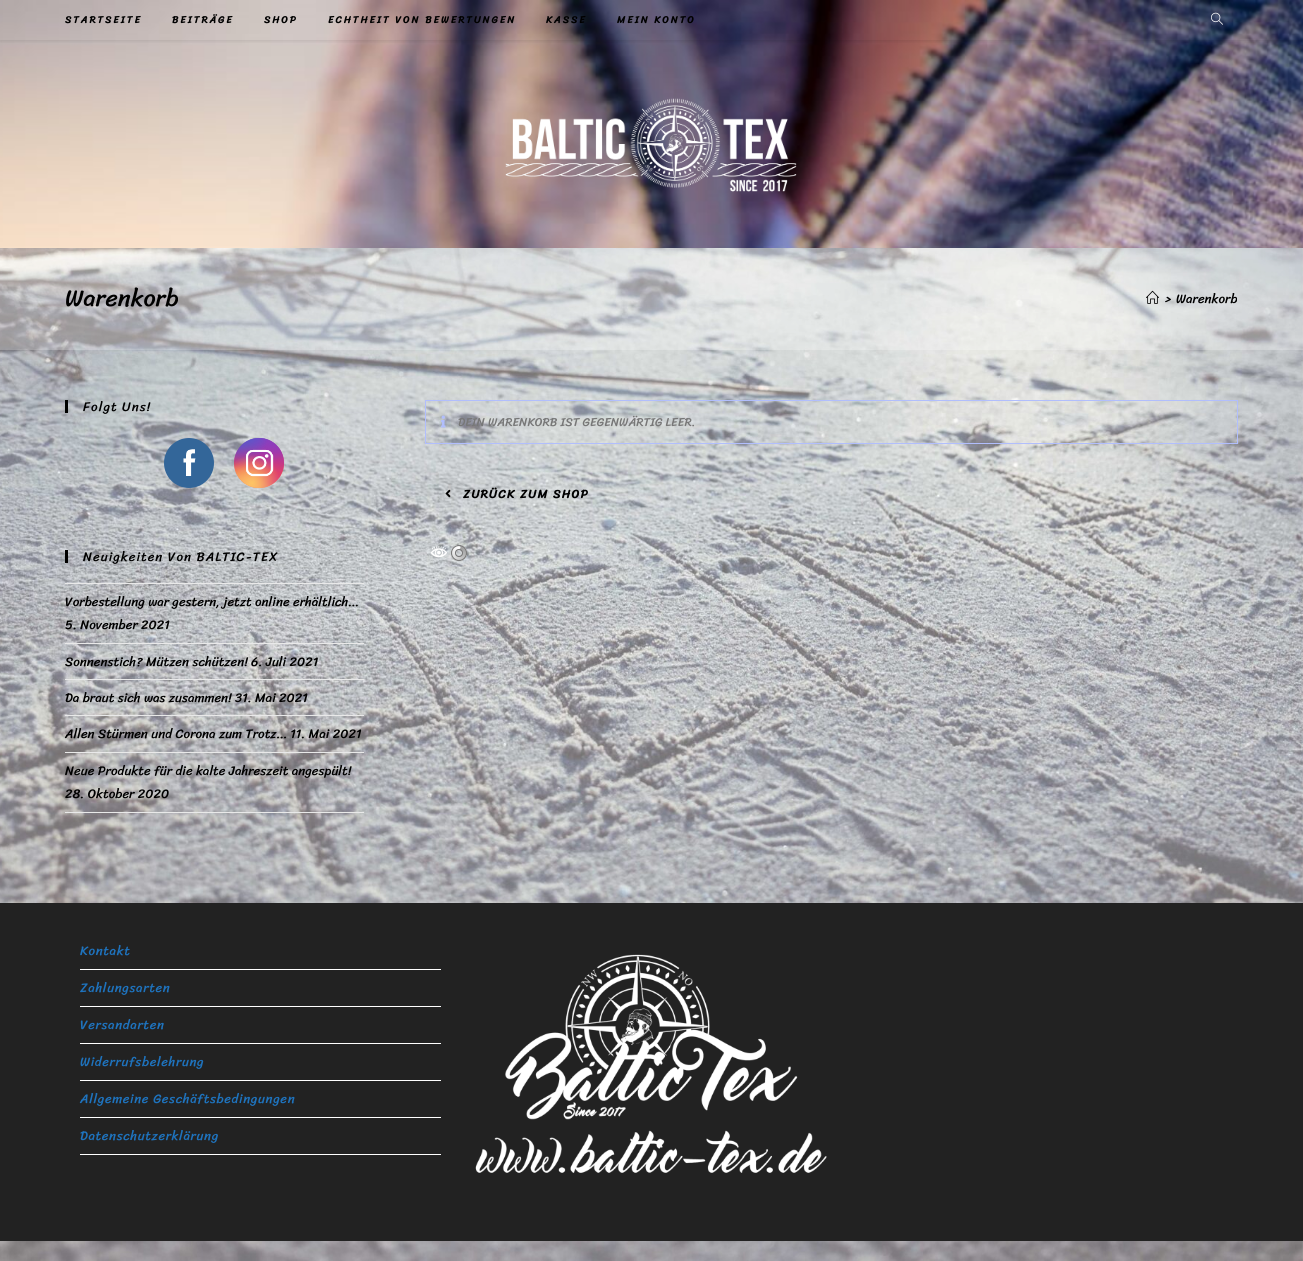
#include <cairo/cairo.h>
#include <math.h>
#include <stddef.h>

typedef struct { double x, y; const char *s; } line_t;
typedef struct { double x, y, w, h; unsigned color; } box_t;
static cairo_t *cr;

static void rgb(unsigned color)
{
	cairo_set_source_rgb(cr, (color >> 16) / 255.0, (color >> 8 & 255) / 255.0, (color & 255) / 255.0);
}

static void tracked(double x, double y, const char *s, double letter, double word)
{
	cairo_move_to(cr, x, y);
	while (*s) {
		char ch[5] = {0};
		int n = 0;
		do ch[n++] = *s++; while ((*s & 0xC0) == 0x80);
		cairo_show_text(cr, ch);
		cairo_rel_move_to(cr, letter + word * (*ch == ' '), 0);
	}
}

static void rrect(double x, double y, double w, double h, double r)
{
	cairo_new_sub_path(cr);
	cairo_arc(cr, x + w - r, y + h - r, r, 0, M_PI / 2);
	cairo_arc(cr, x + r, y + h - r, r, M_PI / 2, M_PI);
	cairo_arc(cr, x + r, y + r, r, M_PI, 1.5 * M_PI);
	cairo_arc(cr, x + w - r, y + r, r, 1.5 * M_PI, 2 * M_PI);
	cairo_close_path(cr);
}

static void soft_shadow(double x, double y, double w, double h, double r, double blur, double alpha)
{
	cairo_push_group_with_content(cr, CAIRO_CONTENT_ALPHA);
	cairo_set_operator(cr, CAIRO_OPERATOR_SOURCE);
	for (int i = 15; i >= -15 && fmin(w, h) + blur * i / 3 > 0; i -= 2) {
		double e = blur * i / 6;
		cairo_set_source_rgba(cr, 0, 0, 0, alpha * erfc((i - 1) / 8.5) / 2);
		rrect(x - e, y - e, w + 2 * e, h + 2 * e, fmax(0, fmin(r + e + blur * .6, fmin(w, h) / 2 + e)));
		cairo_fill(cr);
	}
	cairo_pattern_t *soft = cairo_pop_group(cr);
	cairo_mask(cr, soft);
	cairo_pattern_destroy(soft);
}

static void image(const char *path, double x, double y, double w, double h)
{
	cairo_surface_t *image = cairo_image_surface_create_from_png(path);
	cairo_save(cr);
	cairo_set_source_surface(cr, image, x, y);
	cairo_rectangle(cr, x, y, w, h);
	cairo_fill(cr);
	cairo_restore(cr);
	cairo_surface_destroy(image);
}

int main(void) {
	cairo_surface_t *surface = cairo_image_surface_create(CAIRO_FORMAT_RGB24, 1303, 1261);
	cr = cairo_create(surface);
	cairo_font_options_t *options = cairo_font_options_create();
	cairo_font_options_set_hint_metrics(options, CAIRO_HINT_METRICS_OFF);
	cairo_font_options_set_hint_style(options, CAIRO_HINT_STYLE_NONE);
	cairo_set_font_options(cr, options);
	cairo_set_miter_limit(cr, 4);
	cairo_pattern_t *gradient;
	rgb(0xffffff);
	cairo_paint(cr);
	image("img/1.png", 0, 248, 1303, 1013);
	image("img/2.png", 0, 0, 1303, 248);
	cairo_save(cr);
	cairo_rectangle(cr, 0, 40, 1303, 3);
	cairo_clip(cr);
	rgb(0x000000);
	soft_shadow(0, 1, 1303, 40, 0, 2.5, 0.1);
	cairo_restore(cr);
	image("img/3.png", 1211, 12, 12, 13);
	image("img/4.png", 505, 98, 292, 94);
	cairo_set_source_rgba(cr, 1, 1, 1, 0.26);
	cairo_rectangle(cr, 0, 248, 1303, 102);
	cairo_fill(cr);
	image("img/5.png", 1146, 290, 13, 14);
	rgb(0x000000);
	cairo_rectangle(cr, 65, 400, 3, 13);
	cairo_fill(cr);
	rgb(0x336699);
	cairo_arc(cr, 189, 463, 25, 0, 2 * M_PI);
	cairo_fill(cr);
	image("img/6.png", 183, 449, 13, 27);
	gradient = cairo_pattern_create_linear(259, 438, 259, 488);
	cairo_pattern_add_color_stop_rgba(gradient, 0, 0.396, 0.349, 0.792, 1);
	cairo_pattern_add_color_stop_rgba(gradient, 0.3, 0.737, 0.192, 0.561, 1);
	cairo_pattern_add_color_stop_rgba(gradient, 0.5, 0.89, 0.247, 0.373, 1);
	cairo_pattern_add_color_stop_rgba(gradient, 0.7, 0.969, 0.463, 0.22, 1);
	cairo_pattern_add_color_stop_rgba(gradient, 1, 0.996, 0.776, 0.427, 1);
	cairo_set_source(cr, gradient);
	cairo_pattern_destroy(gradient);
	cairo_arc(cr, 259, 463, 25, 0, 2 * M_PI);
	cairo_fill(cr);
	gradient = cairo_pattern_create_radial(284, 488, 0, 284, 488, 71);
	cairo_pattern_add_color_stop_rgba(gradient, 0, 0.851, 0.192, 0.478, 1);
	cairo_pattern_add_color_stop_rgba(gradient, 1, 0.851, 0.192, 0.478, 0);
	cairo_set_source(cr, gradient);
	cairo_pattern_destroy(gradient);
	cairo_arc(cr, 259, 463, 25, 0, 2 * M_PI);
	cairo_fill(cr);
	gradient = cairo_pattern_create_radial(0, 0, 0, 0, 0, 1);
	cairo_pattern_set_matrix(gradient, &(cairo_matrix_t){1.0 / 42, 0, 0, 1.0 / 85, -1.0 * 264 / 42, -1.0 * 428 / 85});
	cairo_pattern_add_color_stop_rgba(gradient, 0, 0.537, 0.239, 0.761, 1);
	cairo_pattern_add_color_stop_rgba(gradient, 0.5, 0.537, 0.239, 0.761, 0);
	cairo_set_source(cr, gradient);
	cairo_pattern_destroy(gradient);
	cairo_arc(cr, 259, 463, 25, 0, 2 * M_PI);
	cairo_fill(cr);
	gradient = cairo_pattern_create_radial(284, 438, 0, 284, 438, 71);
	cairo_pattern_add_color_stop_rgba(gradient, 0, 0.537, 0.239, 0.761, 1);
	cairo_pattern_add_color_stop_rgba(gradient, 0.5, 0.537, 0.239, 0.761, 0);
	cairo_set_source(cr, gradient);
	cairo_pattern_destroy(gradient);
	cairo_arc(cr, 259, 463, 25, 0, 2 * M_PI);
	cairo_fill(cr);
	gradient = cairo_pattern_create_radial(0, 0, 0, 0, 0, 1);
	cairo_pattern_set_matrix(gradient, &(cairo_matrix_t){1.0 / 57, 0, 0, 1.0 / 106, -1.0 * 244 / 57, -1.0 * 413 / 106});
	cairo_pattern_add_color_stop_rgba(gradient, 0, 0.322, 0.345, 0.812, 1);
	cairo_pattern_add_color_stop_rgba(gradient, 0.5, 0.322, 0.345, 0.812, 0);
	cairo_set_source(cr, gradient);
	cairo_pattern_destroy(gradient);
	cairo_arc(cr, 259, 463, 25, 0, 2 * M_PI);
	cairo_fill(cr);
	gradient = cairo_pattern_create_radial(0, 0, 0, 0, 0, 1);
	cairo_pattern_set_matrix(gradient, &(cairo_matrix_t){1.0 / 71, 0, 0, 1.0 / 88, -1.0 * 234 / 71, -1.0 * 426 / 88});
	cairo_pattern_add_color_stop_rgba(gradient, 0, 0.322, 0.345, 0.812, 1);
	cairo_pattern_add_color_stop_rgba(gradient, 0.5, 0.322, 0.345, 0.812, 0);
	cairo_set_source(cr, gradient);
	cairo_pattern_destroy(gradient);
	cairo_arc(cr, 259, 463, 25, 0, 2 * M_PI);
	cairo_fill(cr);
	gradient = cairo_pattern_create_radial(234, 508, 0, 234, 508, 86);
	cairo_pattern_add_color_stop_rgba(gradient, 0, 0.996, 0.773, 0.392, 1);
	cairo_pattern_add_color_stop_rgba(gradient, 0.5, 0.996, 0.773, 0.392, 0);
	cairo_set_source(cr, gradient);
	cairo_pattern_destroy(gradient);
	cairo_arc(cr, 259, 463, 25, 0, 2 * M_PI);
	cairo_fill(cr);
	gradient = cairo_pattern_create_radial(252, 483, 0, 252, 483, 56);
	cairo_pattern_add_color_stop_rgba(gradient, 0, 0.996, 0.773, 0.392, 1);
	cairo_pattern_add_color_stop_rgba(gradient, 0.5, 0.996, 0.773, 0.392, 0);
	cairo_set_source(cr, gradient);
	cairo_pattern_destroy(gradient);
	cairo_arc(cr, 259, 463, 25, 0, 2 * M_PI);
	cairo_fill(cr);
	image("img/7.png", 246, 449, 28, 28);
	{
		static const box_t items[] = {
			{65, 550, 3, 13, 0x000000},
			{65, 583, 299, 1, 0xe9e9e9},
			{65, 643, 299, 1, 0xe9e9e9},
			{65, 679, 299, 1, 0xe9e9e9},
			{65, 715, 299, 1, 0xe9e9e9},
			{65, 752, 299, 1, 0xe9e9e9},
			{65, 812, 299, 1, 0xe9e9e9},
		};
		for (size_t i = 0; i < sizeof items / sizeof *items; i++) {
			rgb(items[i].color);
			cairo_rectangle(cr, items[i].x, items[i].y, items[i].w, items[i].h);
			cairo_fill(cr);
		}
	}
	cairo_rectangle(cr, 425.5, 400.5, 812, 43);
	rgb(0xb1befd);
	cairo_set_line_width(cr, 1);
	cairo_stroke(cr);
	image("img/8.png", 441, 415, 5, 13);
	image("img/9.png", 445, 489, 6, 9);
	image("img/10.png", 430, 546, 17, 12);
	image("img/11.png", 451, 545, 16, 16);
	{
		static const box_t items[] = {
			{0, 903, 1303, 338, 0x222222},
			{80, 969, 361, 1, 0xffffff},
			{80, 1006, 361, 1, 0xffffff},
			{80, 1043, 361, 1, 0xffffff},
			{80, 1080, 361, 1, 0xffffff},
			{80, 1117, 361, 1, 0xffffff},
			{80, 1154, 361, 1, 0xffffff},
		};
		for (size_t i = 0; i < sizeof items / sizeof *items; i++) {
			rgb(items[i].color);
			cairo_rectangle(cr, items[i].x, items[i].y, items[i].w, items[i].h);
			cairo_fill(cr);
		}
	}
	image("img/12.png", 475, 954, 352, 219);
	cairo_select_font_face(cr, "Sriracha", CAIRO_FONT_SLANT_NORMAL, CAIRO_FONT_WEIGHT_BOLD);
	cairo_set_font_size(cr, 10);
	rgb(0x000000);
	{
		static const line_t items[] = {
			{65, 23, "STARTSEITE"},
			{172, 23, "BEITRÄGE"},
			{264, 23, "SHOP"},
			{328, 23, "ECHTHEIT VON BEWERTUNGEN"},
			{546, 23, "KASSE"},
			{617, 23, "MEIN KONTO"},
		};
		for (size_t i = 0; i < sizeof items / sizeof *items; i++) {
			tracked(items[i].x, items[i].y, items[i].s, 2, 0);
		}
	}
	cairo_select_font_face(cr, "Sriracha", CAIRO_FONT_SLANT_NORMAL, CAIRO_FONT_WEIGHT_NORMAL);
	cairo_set_font_size(cr, 24);
	cairo_move_to(cr, 65, 306);
	cairo_show_text(cr, "Warenkorb");
	cairo_set_font_size(cr, 13);
	cairo_move_to(cr, 1165, 303);
	cairo_show_text(cr, ">");
	cairo_move_to(cr, 1176, 303);
	cairo_show_text(cr, "Warenkorb");
	tracked(83, 411, "Folgt Uns!", 1, 0);
	tracked(83, 561, "Neuigkeiten Von BALTIC-TEX", 1, 0);
	{
		static const line_t items[] = {
			{65, 606, "Vorbestellung war gestern, jetzt online erhältlich…"},
			{65, 629, "5. November 2021"},
			{65, 666, "Sonnenstich? Mützen schützen! 6. Juli 2021"},
			{65, 702, "Da braut sich was zusammen! 31. Mai 2021"},
			{65, 738, "Allen Stürmen und Corona zum Trotz… 11. Mai 2021"},
			{65, 775, "Neue Produkte für die kalte Jahreszeit angespült!"},
			{65, 798, "28. Oktober 2020"},
		};
		for (size_t i = 0; i < sizeof items / sizeof *items; i++) {
			cairo_move_to(cr, items[i].x, items[i].y);
			cairo_show_text(cr, items[i].s);
		}
	}
	cairo_set_font_size(cr, 12);
	rgb(0x777777);
	cairo_move_to(cr, 458, 426);
	cairo_show_text(cr, "DEIN WARENKORB IST GEGENWÄRTIG LEER.");
	cairo_select_font_face(cr, "Sriracha", CAIRO_FONT_SLANT_NORMAL, CAIRO_FONT_WEIGHT_BOLD);
	rgb(0x000000);
	tracked(463, 498, "ZURÜCK ZUM SHOP", 1.25, 0);
	cairo_select_font_face(cr, "Sriracha", CAIRO_FONT_SLANT_NORMAL, CAIRO_FONT_WEIGHT_NORMAL);
	cairo_set_font_size(cr, 13);
	rgb(0x1e73be);
	{
		static const line_t items[] = {
			{80, 955, "Kontakt"},
			{80, 992, "Zahlungsarten"},
			{80, 1029, "Versandarten"},
			{80, 1066, "Widerrufsbelehrung"},
			{80, 1103, "Allgemeine Geschäftsbedingungen"},
			{80, 1140, "Datenschutzerklärung"},
		};
		for (size_t i = 0; i < sizeof items / sizeof *items; i++) {
			tracked(items[i].x, items[i].y, items[i].s, 0.6, 0);
		}
	}
	cairo_surface_write_to_png(surface, "page.png");
	cairo_font_options_destroy(options);
	cairo_destroy(cr);
	cairo_surface_destroy(surface);
	return 0;
}
